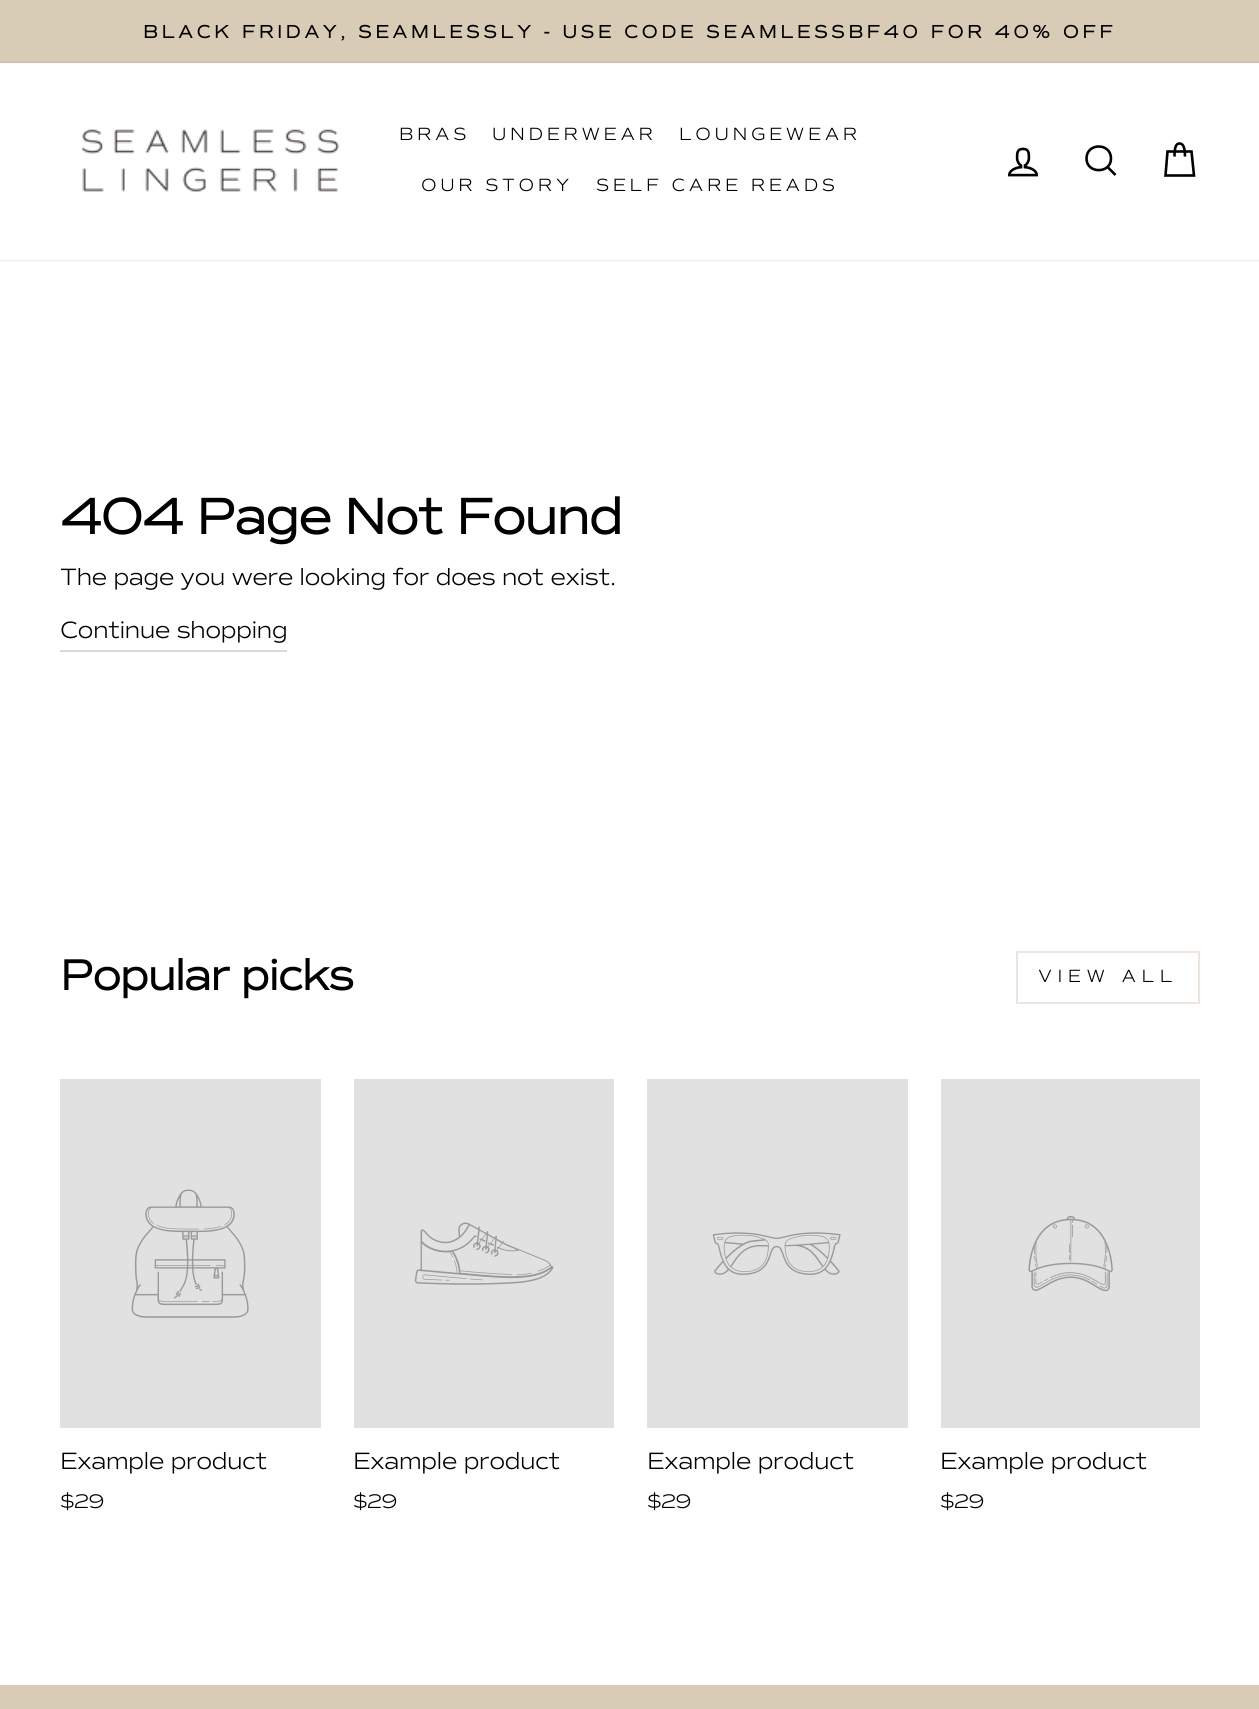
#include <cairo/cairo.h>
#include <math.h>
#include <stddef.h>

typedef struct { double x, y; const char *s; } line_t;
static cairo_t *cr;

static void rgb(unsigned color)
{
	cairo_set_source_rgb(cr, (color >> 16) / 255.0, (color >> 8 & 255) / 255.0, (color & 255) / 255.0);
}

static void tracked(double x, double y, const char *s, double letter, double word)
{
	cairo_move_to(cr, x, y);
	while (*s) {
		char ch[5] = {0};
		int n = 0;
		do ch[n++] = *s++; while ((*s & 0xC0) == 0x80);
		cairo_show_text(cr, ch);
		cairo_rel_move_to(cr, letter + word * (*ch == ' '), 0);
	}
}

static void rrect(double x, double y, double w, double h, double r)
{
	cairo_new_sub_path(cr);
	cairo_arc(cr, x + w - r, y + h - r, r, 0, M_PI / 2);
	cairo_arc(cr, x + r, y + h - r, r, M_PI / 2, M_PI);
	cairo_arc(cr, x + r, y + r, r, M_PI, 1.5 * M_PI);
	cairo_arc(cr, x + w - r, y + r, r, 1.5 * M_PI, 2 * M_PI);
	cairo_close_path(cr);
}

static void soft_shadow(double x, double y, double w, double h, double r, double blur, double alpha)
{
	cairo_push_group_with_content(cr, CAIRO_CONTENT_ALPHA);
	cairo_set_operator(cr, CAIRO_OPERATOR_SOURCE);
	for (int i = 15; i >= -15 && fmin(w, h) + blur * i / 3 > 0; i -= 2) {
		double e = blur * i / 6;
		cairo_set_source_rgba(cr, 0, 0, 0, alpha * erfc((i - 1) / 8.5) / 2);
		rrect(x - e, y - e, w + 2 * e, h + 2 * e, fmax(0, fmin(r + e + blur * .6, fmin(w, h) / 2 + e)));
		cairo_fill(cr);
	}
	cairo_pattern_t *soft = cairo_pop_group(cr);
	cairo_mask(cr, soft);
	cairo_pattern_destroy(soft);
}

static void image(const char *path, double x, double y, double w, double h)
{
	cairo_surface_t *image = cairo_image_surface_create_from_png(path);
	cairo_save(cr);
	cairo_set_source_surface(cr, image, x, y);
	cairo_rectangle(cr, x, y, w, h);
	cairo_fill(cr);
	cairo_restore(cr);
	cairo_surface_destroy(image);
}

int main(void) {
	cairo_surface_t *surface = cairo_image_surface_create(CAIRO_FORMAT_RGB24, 1259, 1709);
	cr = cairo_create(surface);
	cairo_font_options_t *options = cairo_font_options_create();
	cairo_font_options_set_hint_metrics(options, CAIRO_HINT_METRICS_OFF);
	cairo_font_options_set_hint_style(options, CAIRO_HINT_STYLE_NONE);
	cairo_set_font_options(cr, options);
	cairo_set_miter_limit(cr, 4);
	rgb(0xffffff);
	cairo_paint(cr);
	rgb(0xd9ccb7);
	cairo_rectangle(cr, 0, 0, 1259, 63);
	cairo_fill(cr);
	rgb(0x000000);
	soft_shadow(0, 63, 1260, 197, 0, 1, 0.2);
	rgb(0xffffff);
	cairo_rectangle(cr, 0, 63, 1259, 197);
	cairo_fill(cr);
	image("img/1.png", 81, 129, 259, 63);
	image("img/2.png", 1007, 147, 32, 30);
	cairo_new_path(cr);
	cairo_move_to(cr, 1111, 158.5);
	cairo_curve_to(cr, 1111, 174, 1086.5, 174, 1086.5, 158.5);
	cairo_curve_to(cr, 1086.5, 142.5, 1111, 142.5, 1111, 158.5);
	cairo_close_path(cr);
	cairo_move_to(cr, 1115.5, 175);
	cairo_line_to(cr, 1107.5, 167);
	rgb(0x000000);
	cairo_set_line_width(cr, 2.6);
	cairo_stroke(cr);
	cairo_new_path(cr);
	cairo_move_to(cr, 1174.5, 156.5);
	cairo_curve_to(cr, 1174.5, 146, 1176.5, 143.5, 1179.5, 143.5);
	cairo_curve_to(cr, 1182.5, 143.5, 1185, 146, 1185, 156.5);
	cairo_move_to(cr, 1167.5, 151.5);
	cairo_line_to(cr, 1191.5, 151.5);
	cairo_line_to(cr, 1194, 175.5);
	cairo_line_to(cr, 1165.5, 175.5);
	cairo_close_path(cr);
	cairo_stroke(cr);
	rgb(0xd9d9d9);
	cairo_rectangle(cr, 60, 650, 227, 2);
	cairo_fill(cr);
	cairo_rectangle(cr, 1017, 952, 182, 51);
	rgb(0xede5dd);
	cairo_set_line_width(cr, 2);
	cairo_stroke(cr);
	rgb(0xe1e1e1);
	cairo_rectangle(cr, 60, 1079, 261, 349);
	cairo_fill(cr);
	image("img/3.png", 131, 1189, 118, 129);
	cairo_rectangle(cr, 354, 1079, 260, 349);
	cairo_fill(cr);
	image("img/4.png", 414, 1222, 140, 63);
	cairo_rectangle(cr, 647, 1079, 261, 349);
	cairo_fill(cr);
	image("img/5.png", 712, 1232, 129, 43);
	cairo_rectangle(cr, 941, 1079, 259, 349);
	cairo_fill(cr);
	image("img/6.png", 1028, 1216, 85, 76);
	rgb(0xd9ccb7);
	cairo_rectangle(cr, 0, 1685, 1259, 24);
	cairo_fill(cr);
	cairo_select_font_face(cr, "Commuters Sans", CAIRO_FONT_SLANT_NORMAL, CAIRO_FONT_WEIGHT_BOLD);
	cairo_set_font_size(cr, 18.35);
	rgb(0x000000);
	tracked(143, 38, "BLACK FRIDAY, SEAMLESSLY - USE CODE SEAMLESSBF40 FOR 40% OFF", 3.67, 0);
	cairo_select_font_face(cr, "Commuters Sans Light", CAIRO_FONT_SLANT_NORMAL, CAIRO_FONT_WEIGHT_NORMAL);
	cairo_set_font_size(cr, 18);
	{
		static const line_t items[] = {
			{399, 140, "BRAS"},
			{492, 140, "UNDERWEAR"},
			{679, 140, "LOUNGEWEAR"},
			{421, 191, "OUR STORY"},
			{596, 191, "SELF CARE READS"},
		};
		for (size_t i = 0; i < sizeof items / sizeof *items; i++) {
			tracked(items[i].x, items[i].y, items[i].s, 3.6, 0);
		}
	}
	cairo_select_font_face(cr, "Commuters Sans", CAIRO_FONT_SLANT_NORMAL, CAIRO_FONT_WEIGHT_BOLD);
	cairo_set_font_size(cr, 51);
	tracked(60, 534, "404 Page Not Found", -1.25, 0);
	cairo_select_font_face(cr, "Commuters Sans Light", CAIRO_FONT_SLANT_NORMAL, CAIRO_FONT_WEIGHT_NORMAL);
	cairo_set_font_size(cr, 24);
	tracked(60, 585, "The page you were looking for does not exist.", -0.6, 0);
	tracked(60, 638, "Continue shopping", -0.6, 0);
	cairo_select_font_face(cr, "Commuters Sans", CAIRO_FONT_SLANT_NORMAL, CAIRO_FONT_WEIGHT_BOLD);
	cairo_set_font_size(cr, 43.25);
	tracked(60, 990, "Popular picks", -1.1, 0);
	cairo_select_font_face(cr, "Commuters Sans Light", CAIRO_FONT_SLANT_NORMAL, CAIRO_FONT_WEIGHT_NORMAL);
	cairo_set_font_size(cr, 18);
	tracked(1038, 982, "VIEW ALL", 5.5, 0);
	cairo_set_font_size(cr, 24);
	tracked(60, 1469, "Example product", -0.6, 0);
	cairo_set_font_size(cr, 20);
	tracked(60, 1508, "$29", -0.6, 0);
	cairo_set_font_size(cr, 24);
	tracked(353, 1469, "Example product", -0.6, 0);
	cairo_set_font_size(cr, 20);
	tracked(353, 1508, "$29", -0.6, 0);
	cairo_set_font_size(cr, 24);
	tracked(647, 1469, "Example product", -0.6, 0);
	cairo_set_font_size(cr, 20);
	tracked(647, 1508, "$29", -0.6, 0);
	cairo_set_font_size(cr, 24);
	tracked(940, 1469, "Example product", -0.6, 0);
	cairo_set_font_size(cr, 20);
	tracked(940, 1508, "$29", -0.6, 0);
	cairo_surface_write_to_png(surface, "page.png");
	cairo_font_options_destroy(options);
	cairo_destroy(cr);
	cairo_surface_destroy(surface);
	return 0;
}
